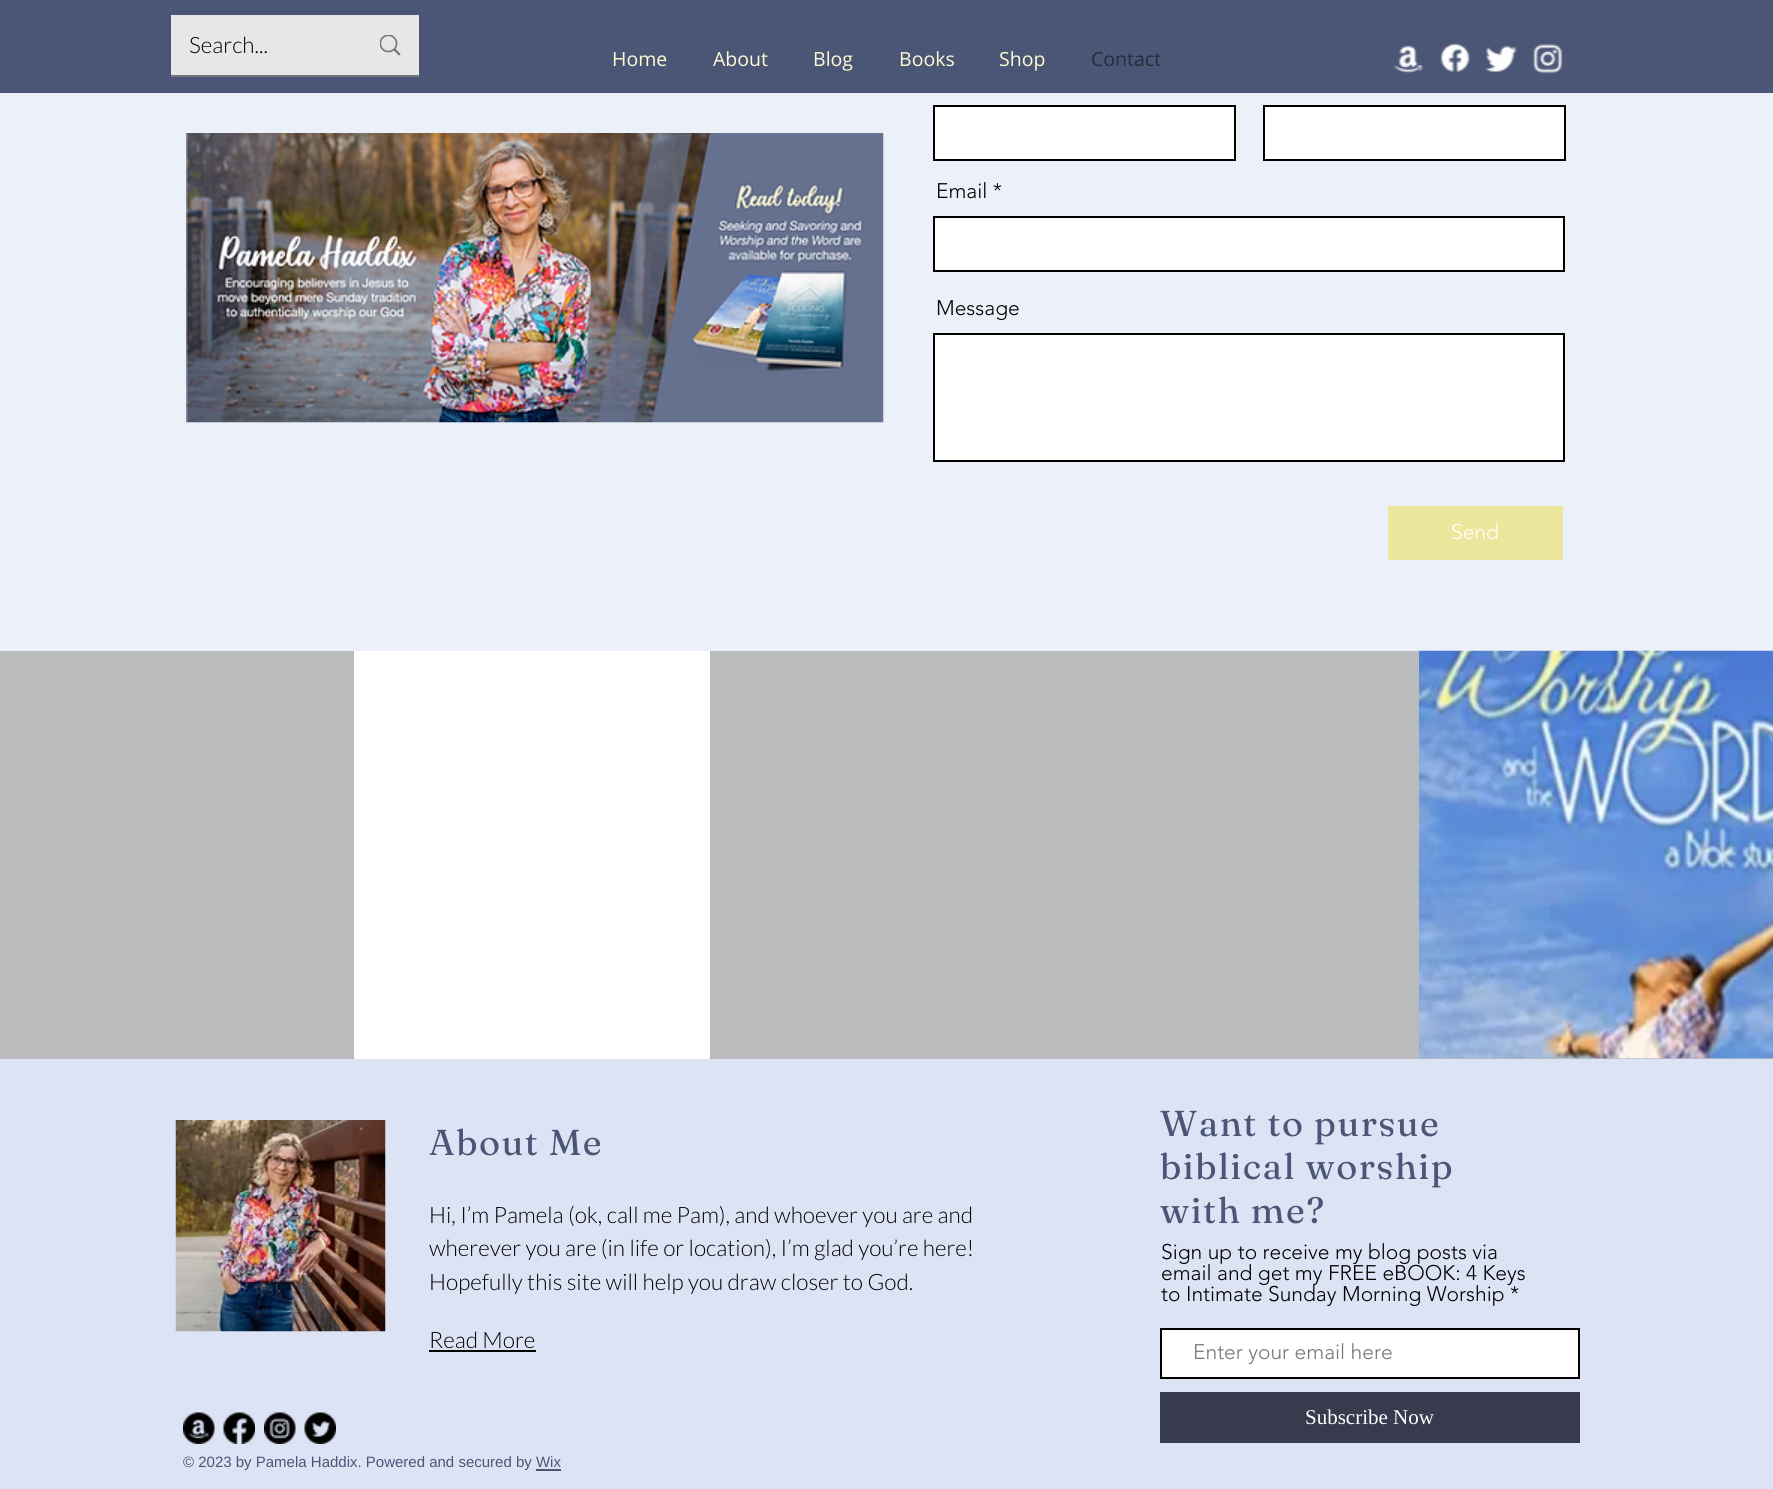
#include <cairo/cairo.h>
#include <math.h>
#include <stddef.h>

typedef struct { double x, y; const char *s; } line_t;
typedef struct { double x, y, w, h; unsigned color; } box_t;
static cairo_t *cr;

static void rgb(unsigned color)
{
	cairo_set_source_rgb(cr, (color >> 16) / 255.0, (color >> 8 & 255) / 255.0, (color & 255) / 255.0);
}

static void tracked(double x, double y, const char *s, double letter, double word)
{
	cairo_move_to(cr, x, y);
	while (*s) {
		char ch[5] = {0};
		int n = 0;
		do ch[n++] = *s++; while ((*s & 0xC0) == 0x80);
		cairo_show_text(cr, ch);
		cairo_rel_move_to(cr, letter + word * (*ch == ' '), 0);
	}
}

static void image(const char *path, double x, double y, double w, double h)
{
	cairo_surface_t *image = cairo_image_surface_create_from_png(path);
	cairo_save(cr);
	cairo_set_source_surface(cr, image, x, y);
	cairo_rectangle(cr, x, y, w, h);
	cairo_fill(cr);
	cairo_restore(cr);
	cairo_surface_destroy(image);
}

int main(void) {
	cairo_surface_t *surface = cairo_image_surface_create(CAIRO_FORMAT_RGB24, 1773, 1489);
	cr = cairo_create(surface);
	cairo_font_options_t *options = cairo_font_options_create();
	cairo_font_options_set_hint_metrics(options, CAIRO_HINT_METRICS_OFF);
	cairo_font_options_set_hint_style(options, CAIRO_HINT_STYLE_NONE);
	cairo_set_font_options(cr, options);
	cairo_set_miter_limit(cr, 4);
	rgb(0xecf0f9);
	cairo_paint(cr);
	{
		static const box_t items[] = {
			{0, 0, 1773, 93, 0x4b5676},
			{171, 75, 248, 2, 0x757575},
			{171, 15, 248, 60, 0xe8e6e6},
		};
		for (size_t i = 0; i < sizeof items / sizeof *items; i++) {
			rgb(items[i].color);
			cairo_rectangle(cr, items[i].x, items[i].y, items[i].w, items[i].h);
			cairo_fill(cr);
		}
	}
	image("img/1.png", 380, 35, 21, 21);
	image("img/2.png", 1393, 45, 30, 29);
	image("img/3.png", 1440, 43, 31, 29);
	image("img/4.png", 1485, 45, 32, 28);
	image("img/5.png", 1532, 44, 31, 30);
	image("img/6.png", 186, 133, 698, 290);
	rgb(0xffffff);
	cairo_rectangle(cr, 934, 106, 301, 54);
	cairo_fill_preserve(cr);
	rgb(0x000000);
	cairo_stroke(cr);
	rgb(0xffffff);
	cairo_rectangle(cr, 1264, 106, 301, 54);
	cairo_fill_preserve(cr);
	rgb(0x000000);
	cairo_stroke(cr);
	rgb(0xffffff);
	cairo_rectangle(cr, 934, 217, 630, 54);
	cairo_fill_preserve(cr);
	rgb(0x000000);
	cairo_stroke(cr);
	rgb(0xffffff);
	cairo_rectangle(cr, 934, 334, 630, 127);
	cairo_fill_preserve(cr);
	rgb(0x000000);
	cairo_stroke(cr);
	{
		static const box_t items[] = {
			{1388, 506, 175, 54, 0xede69d},
			{0, 1059, 1773, 430, 0xdce3f5},
			{0, 651, 354, 408, 0xb9bbbd},
			{354, 651, 356, 408, 0xffffff},
			{710, 651, 709, 408, 0xb9bbbd},
			{1419, 1058, 354, 1, 0xb9bbbd},
		};
		for (size_t i = 0; i < sizeof items / sizeof *items; i++) {
			rgb(items[i].color);
			cairo_rectangle(cr, items[i].x, items[i].y, items[i].w, items[i].h);
			cairo_fill(cr);
		}
	}
	image("img/7.png", 1419, 650, 354, 409);
	image("img/8.png", 175, 1120, 211, 212);
	rgb(0xffffff);
	cairo_rectangle(cr, 1161, 1329, 418, 49);
	cairo_fill_preserve(cr);
	rgb(0x000000);
	cairo_stroke(cr);
	rgb(0x373b4d);
	cairo_rectangle(cr, 1160, 1392, 420, 51);
	cairo_fill(cr);
	rgb(0x000000);
	cairo_rectangle(cr, 429, 1350, 107, 2);
	cairo_fill(cr);
	image("img/9.png", 183, 1412, 32, 32);
	image("img/10.png", 223, 1412, 32, 32);
	image("img/11.png", 264, 1412, 32, 32);
	image("img/12.png", 304, 1412, 32, 32);
	rgb(0x4b5676);
	cairo_rectangle(cr, 536, 1469, 25, 2);
	cairo_fill(cr);
	cairo_select_font_face(cr, "Lato Light", CAIRO_FONT_SLANT_NORMAL, CAIRO_FONT_WEIGHT_NORMAL);
	cairo_set_font_size(cr, 22.5);
	rgb(0x000000);
	cairo_move_to(cr, 189, 53);
	cairo_show_text(cr, "Search...");
	cairo_select_font_face(cr, "Open Sans", CAIRO_FONT_SLANT_NORMAL, CAIRO_FONT_WEIGHT_NORMAL);
	cairo_set_font_size(cr, 19.5);
	rgb(0xfdfad4);
	{
		static const line_t items[] = {
			{612, 66, "Home"},
			{713, 66, "About"},
			{813, 66, "Blog"},
			{899, 66, "Books"},
			{999, 66, "Shop"},
		};
		for (size_t i = 0; i < sizeof items / sizeof *items; i++) {
			cairo_move_to(cr, items[i].x, items[i].y);
			cairo_show_text(cr, items[i].s);
		}
	}
	rgb(0x262b3b);
	cairo_move_to(cr, 1091, 66);
	cairo_show_text(cr, "Contact");
	cairo_select_font_face(cr, "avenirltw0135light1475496 Light", CAIRO_FONT_SLANT_NORMAL, CAIRO_FONT_WEIGHT_NORMAL);
	cairo_set_font_size(cr, 21);
	rgb(0x000000);
	cairo_move_to(cr, 936, 198);
	cairo_show_text(cr, "Email *");
	cairo_move_to(cr, 936, 315);
	cairo_show_text(cr, "Message");
	rgb(0xffffff);
	cairo_move_to(cr, 1451, 539);
	cairo_show_text(cr, "Send");
	cairo_select_font_face(cr, "Fraunces", CAIRO_FONT_SLANT_NORMAL, CAIRO_FONT_WEIGHT_NORMAL);
	cairo_set_font_size(cr, 36);
	rgb(0x4b5676);
	{
		static const line_t items[] = {
			{429, 1155, "About Me"},
			{1160, 1136, "Want to pursue"},
			{1160, 1179, "biblical worship"},
			{1160, 1223, "with me?"},
		};
		for (size_t i = 0; i < sizeof items / sizeof *items; i++) {
			tracked(items[i].x, items[i].y, items[i].s, 1.5, 0);
		}
	}
	cairo_select_font_face(cr, "avenirltw0135light1475496 Light", CAIRO_FONT_SLANT_NORMAL, CAIRO_FONT_WEIGHT_NORMAL);
	cairo_set_font_size(cr, 21);
	rgb(0x000000);
	{
		static const line_t items[] = {
			{1161, 1259, "Sign up to receive my blog posts via"},
			{1161, 1280, "email and get my FREE eBOOK: 4 Keys"},
			{1161, 1301, "to Intimate Sunday Morning Worship *"},
		};
		for (size_t i = 0; i < sizeof items / sizeof *items; i++) {
			cairo_move_to(cr, items[i].x, items[i].y);
			cairo_show_text(cr, items[i].s);
		}
	}
	rgb(0x757575);
	cairo_move_to(cr, 1193, 1359);
	cairo_show_text(cr, "Enter your email here");
	cairo_select_font_face(cr, "Liberation Serif", CAIRO_FONT_SLANT_NORMAL, CAIRO_FONT_WEIGHT_NORMAL);
	rgb(0xffffff);
	cairo_move_to(cr, 1305, 1424);
	cairo_show_text(cr, "Subscribe Now");
	cairo_select_font_face(cr, "Lato Light", CAIRO_FONT_SLANT_NORMAL, CAIRO_FONT_WEIGHT_NORMAL);
	cairo_set_font_size(cr, 22.5);
	rgb(0x000000);
	{
		static const line_t items[] = {
			{429, 1223, "Hi, I’m Pamela (ok, call me Pam), and whoever you are and"},
			{429, 1256, "wherever you are (in life or location), I’m glad you’re here!"},
			{429, 1290, "Hopefully this site will help you draw closer to God."},
			{429, 1348, "Read More"},
		};
		for (size_t i = 0; i < sizeof items / sizeof *items; i++) {
			cairo_move_to(cr, items[i].x, items[i].y);
			cairo_show_text(cr, items[i].s);
		}
	}
	cairo_select_font_face(cr, "Liberation Sans", CAIRO_FONT_SLANT_NORMAL, CAIRO_FONT_WEIGHT_NORMAL);
	cairo_set_font_size(cr, 15);
	rgb(0x4b5676);
	cairo_move_to(cr, 183, 1467);
	cairo_show_text(cr, "© 2023 by Pamela Haddix. Powered and secured by Wix");
	cairo_surface_write_to_png(surface, "page.png");
	cairo_font_options_destroy(options);
	cairo_destroy(cr);
	cairo_surface_destroy(surface);
	return 0;
}
